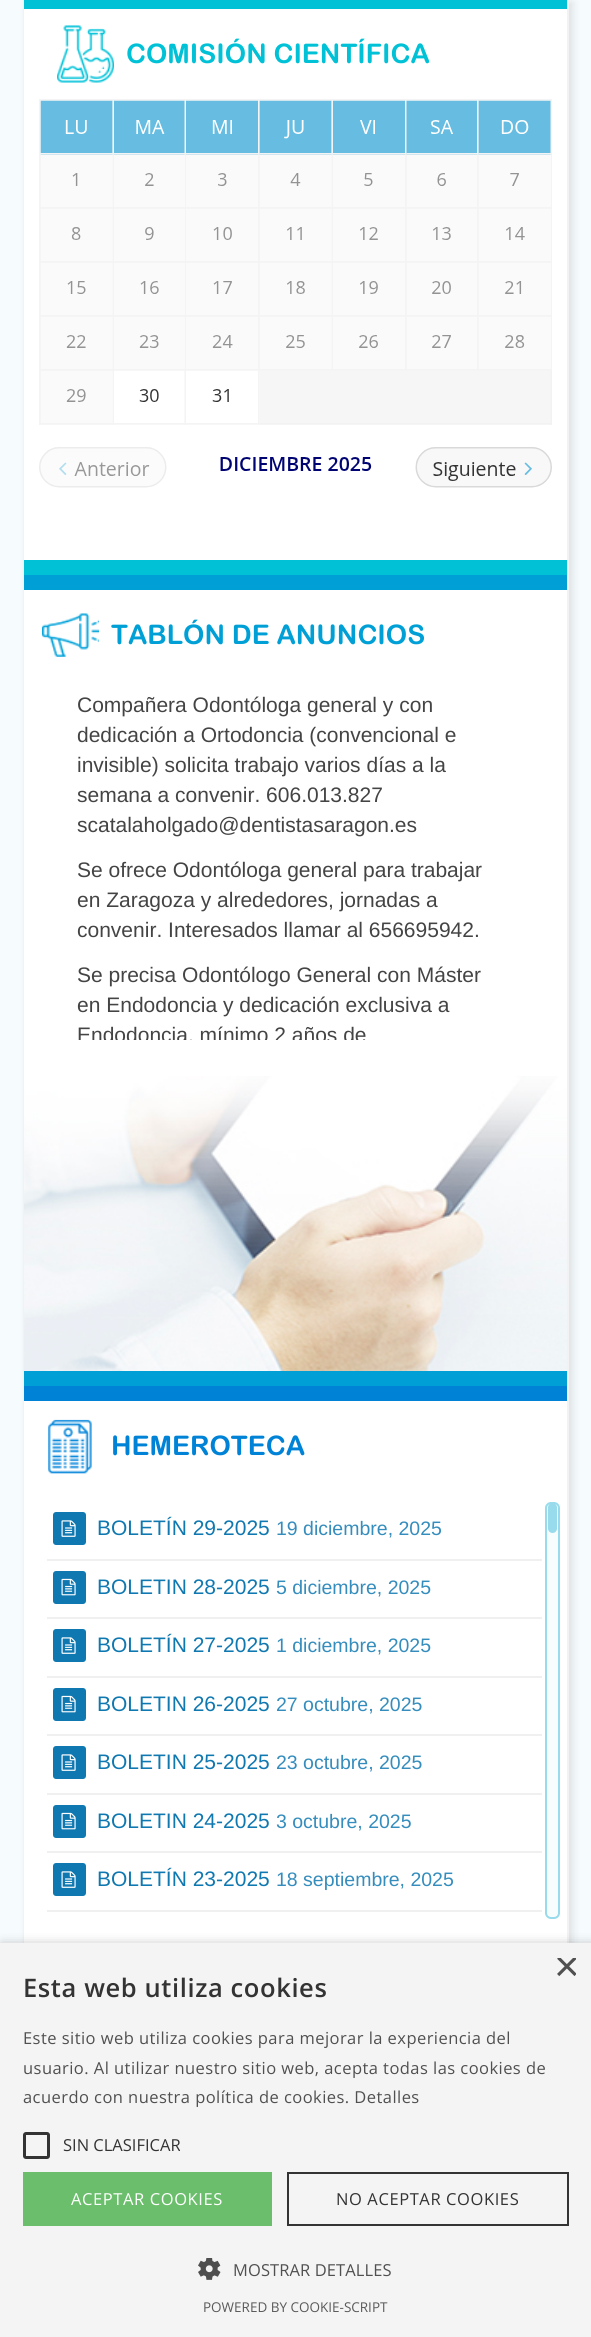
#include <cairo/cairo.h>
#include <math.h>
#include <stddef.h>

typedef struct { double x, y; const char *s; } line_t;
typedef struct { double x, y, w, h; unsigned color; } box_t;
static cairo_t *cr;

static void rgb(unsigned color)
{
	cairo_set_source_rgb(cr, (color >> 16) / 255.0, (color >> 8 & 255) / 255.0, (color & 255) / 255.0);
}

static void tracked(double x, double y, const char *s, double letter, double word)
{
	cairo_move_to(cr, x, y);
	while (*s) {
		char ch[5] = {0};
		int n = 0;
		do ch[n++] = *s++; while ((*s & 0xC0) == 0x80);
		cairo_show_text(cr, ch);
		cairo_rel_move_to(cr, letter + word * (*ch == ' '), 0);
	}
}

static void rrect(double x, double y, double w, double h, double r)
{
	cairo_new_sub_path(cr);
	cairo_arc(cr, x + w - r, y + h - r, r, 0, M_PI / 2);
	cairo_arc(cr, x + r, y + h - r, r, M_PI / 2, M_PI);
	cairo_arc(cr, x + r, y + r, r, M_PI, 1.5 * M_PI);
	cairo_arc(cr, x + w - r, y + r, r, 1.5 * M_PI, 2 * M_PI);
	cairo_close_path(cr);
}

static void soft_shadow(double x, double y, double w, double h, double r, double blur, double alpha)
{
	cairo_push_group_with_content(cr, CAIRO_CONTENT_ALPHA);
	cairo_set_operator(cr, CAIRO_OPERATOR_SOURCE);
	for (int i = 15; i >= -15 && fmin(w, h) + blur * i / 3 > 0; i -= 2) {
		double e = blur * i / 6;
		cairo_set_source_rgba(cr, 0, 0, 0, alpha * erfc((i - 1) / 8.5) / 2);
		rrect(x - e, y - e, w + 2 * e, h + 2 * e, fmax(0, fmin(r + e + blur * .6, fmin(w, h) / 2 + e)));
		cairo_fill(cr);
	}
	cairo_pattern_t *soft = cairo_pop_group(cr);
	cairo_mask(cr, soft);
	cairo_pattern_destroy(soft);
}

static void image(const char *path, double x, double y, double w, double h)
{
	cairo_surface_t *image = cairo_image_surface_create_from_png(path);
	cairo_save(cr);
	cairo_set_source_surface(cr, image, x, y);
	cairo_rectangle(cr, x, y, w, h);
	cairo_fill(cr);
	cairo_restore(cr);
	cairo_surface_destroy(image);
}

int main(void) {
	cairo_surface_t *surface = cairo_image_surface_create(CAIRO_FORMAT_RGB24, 591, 2337);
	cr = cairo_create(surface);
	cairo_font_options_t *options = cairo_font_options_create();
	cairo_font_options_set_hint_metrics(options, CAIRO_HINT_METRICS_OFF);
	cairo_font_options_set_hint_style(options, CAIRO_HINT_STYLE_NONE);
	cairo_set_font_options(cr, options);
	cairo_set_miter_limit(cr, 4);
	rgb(0xf6fbfe);
	cairo_paint(cr);
	rgb(0x000000);
	soft_shadow(27, 2, 546, 1957, 0, 4, 0.1);
	{
		static const box_t items[] = {
			{567, 0, 2, 1943, 0xf2f2f2},
			{23, 0, 1, 1943, 0xf2f2f2},
			{24, 9, 543, 551, 0xffffff},
			{24, 0, 543, 9, 0x00c1d6},
			{24, 560, 543, 15, 0x00c1d6},
		};
		for (size_t i = 0; i < sizeof items / sizeof *items; i++) {
			rgb(items[i].color);
			cairo_rectangle(cr, items[i].x, items[i].y, items[i].w, items[i].h);
			cairo_fill(cr);
		}
	}
	image("img/1.png", 57, 25, 57, 58);
	image("img/2.png", 39, 99, 513, 389);
	{
		static const box_t items[] = {
			{24, 590, 543, 486, 0xffffff},
			{24, 575, 543, 15, 0x00a0d6},
			{24, 1371, 543, 15, 0x00a0d6},
		};
		for (size_t i = 0; i < sizeof items / sizeof *items; i++) {
			rgb(items[i].color);
			cairo_rectangle(cr, items[i].x, items[i].y, items[i].w, items[i].h);
			cairo_fill(cr);
		}
	}
	image("img/3.png", 42, 613, 57, 44);
	image("img/4.png", 24, 1076, 543, 295);
	rgb(0xffffff);
	cairo_rectangle(cr, 24, 1401, 543, 542);
	cairo_fill(cr);
	rgb(0x0083d6);
	cairo_rectangle(cr, 24, 1386, 543, 15);
	cairo_fill(cr);
	image("img/5.png", 48, 1419, 44, 55);
	rgb(0xf0f0f0);
	cairo_rectangle(cr, 47, 1559, 495, 2);
	cairo_fill(cr);
	rgb(0x0f78b1);
	rrect(53, 1512, 33, 33, 3);
	cairo_fill(cr);
	image("img/6.png", 61, 1520, 15, 17);
	rgb(0xf0f0f0);
	cairo_rectangle(cr, 47, 1617, 495, 2);
	cairo_fill(cr);
	rgb(0x0f78b1);
	rrect(53, 1571, 33, 33, 3);
	cairo_fill(cr);
	image("img/7.png", 61, 1578, 15, 18);
	rgb(0xf0f0f0);
	cairo_rectangle(cr, 47, 1676, 495, 2);
	cairo_fill(cr);
	rgb(0x0f78b1);
	rrect(53, 1629, 33, 33, 3);
	cairo_fill(cr);
	image("img/6.png", 61, 1637, 15, 17);
	rgb(0xf0f0f0);
	cairo_rectangle(cr, 47, 1734, 495, 2);
	cairo_fill(cr);
	rgb(0x0f78b1);
	rrect(53, 1688, 33, 33, 3);
	cairo_fill(cr);
	image("img/7.png", 61, 1695, 15, 18);
	rgb(0xf0f0f0);
	cairo_rectangle(cr, 47, 1793, 495, 2);
	cairo_fill(cr);
	rgb(0x0f78b1);
	rrect(53, 1746, 33, 33, 3);
	cairo_fill(cr);
	image("img/6.png", 61, 1754, 15, 17);
	rgb(0xf0f0f0);
	cairo_rectangle(cr, 47, 1851, 495, 2);
	cairo_fill(cr);
	rgb(0x0f78b1);
	rrect(53, 1805, 33, 33, 3);
	cairo_fill(cr);
	image("img/7.png", 61, 1812, 15, 18);
	rgb(0xf0f0f0);
	cairo_rectangle(cr, 47, 1910, 495, 2);
	cairo_fill(cr);
	rgb(0x0f78b1);
	rrect(53, 1863, 33, 33, 3);
	cairo_fill(cr);
	image("img/6.png", 61, 1871, 15, 17);
	rgb(0xf7fcfd);
	rrect(546, 1503, 13, 415, 5);
	cairo_fill_preserve(cr);
	rgb(0x97dbec);
	cairo_stroke(cr);
	rrect(548, 1503, 9, 30, 4.5);
	cairo_fill(cr);
	rgb(0x000000);
	soft_shadow(2, 1946, 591, 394, 0, 6, 0.35);
	rgb(0xf4f4f4);
	cairo_rectangle(cr, 0, 1943, 591, 394);
	cairo_fill(cr);
	rrect(24.5, 2133.5, 24, 24, 1.5);
	rgb(0x333333);
	cairo_set_line_width(cr, 3);
	cairo_stroke(cr);
	rgb(0x6bbe6b);
	cairo_rectangle(cr, 23, 2172, 249, 54);
	cairo_fill(cr);
	cairo_rectangle(cr, 288, 2173, 280, 52);
	rgb(0x333333);
	cairo_set_line_width(cr, 2);
	cairo_stroke(cr);
	image("img/8.png", 198, 2258, 23, 22);
	cairo_select_font_face(cr, "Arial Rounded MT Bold", CAIRO_FONT_SLANT_NORMAL, CAIRO_FONT_WEIGHT_BOLD);
	cairo_set_font_size(cr, 27);
	rgb(0x00c1d6);
	cairo_move_to(cr, 126, 63);
	cairo_show_text(cr, "COMISIÓN CIENTÍFICA");
	rgb(0x00a0d6);
	cairo_move_to(cr, 111, 644);
	cairo_show_text(cr, "TABLÓN DE ANUNCIOS");
	cairo_select_font_face(cr, "Liberation Sans", CAIRO_FONT_SLANT_NORMAL, CAIRO_FONT_WEIGHT_NORMAL);
	cairo_set_font_size(cr, 21);
	rgb(0x444444);
	{
		static const line_t items[] = {
			{77, 712, "Compañera Odontóloga general y con"},
			{77, 742, "dedicación a Ortodoncia (convencional e"},
			{77, 772, "invisible) solicita trabajo varios días a la"},
			{77, 802, "semana a convenir. 606.013.827"},
			{77, 832, "scatalaholgado@dentistasaragon.es"},
			{77, 877, "Se ofrece Odontóloga general para trabajar"},
			{77, 907, "en Zaragoza y alrededores, jornadas a"},
			{77, 937, "convenir. Interesados llamar al 656695942."},
			{77, 982, "Se precisa Odontólogo General con Máster"},
			{77, 1012, "en Endodoncia y dedicación exclusiva a"},
		};
		for (size_t i = 0; i < sizeof items / sizeof *items; i++) {
			cairo_move_to(cr, items[i].x, items[i].y);
			cairo_show_text(cr, items[i].s);
		}
	}
	cairo_save(cr);
	cairo_rectangle(cr, 24, 680, 543, 360);
	cairo_clip(cr);
	cairo_move_to(cr, 77, 1042);
	cairo_show_text(cr, "Endodoncia, mínimo 2 años de");
	cairo_restore(cr);
	cairo_select_font_face(cr, "Arial Rounded MT Bold", CAIRO_FONT_SLANT_NORMAL, CAIRO_FONT_WEIGHT_BOLD);
	cairo_set_font_size(cr, 27);
	rgb(0x0083d6);
	cairo_move_to(cr, 111, 1455);
	cairo_show_text(cr, "HEMEROTECA");
	cairo_select_font_face(cr, "Liberation Sans", CAIRO_FONT_SLANT_NORMAL, CAIRO_FONT_WEIGHT_NORMAL);
	cairo_set_font_size(cr, 21);
	rgb(0x0f78b1);
	cairo_move_to(cr, 97, 1535);
	cairo_show_text(cr, "BOLETÍN 29-2025");
	cairo_set_font_size(cr, 19.5);
	rgb(0x358dbd);
	cairo_move_to(cr, 276, 1535);
	cairo_show_text(cr, "19 diciembre, 2025");
	cairo_set_font_size(cr, 21);
	rgb(0x0f78b1);
	cairo_move_to(cr, 97, 1594);
	cairo_show_text(cr, "BOLETIN 28-2025");
	cairo_set_font_size(cr, 19.5);
	rgb(0x358dbd);
	cairo_move_to(cr, 276, 1594);
	cairo_show_text(cr, "5 diciembre, 2025");
	cairo_set_font_size(cr, 21);
	rgb(0x0f78b1);
	cairo_move_to(cr, 97, 1652);
	cairo_show_text(cr, "BOLETÍN 27-2025");
	cairo_set_font_size(cr, 19.5);
	rgb(0x358dbd);
	cairo_move_to(cr, 276, 1652);
	cairo_show_text(cr, "1 diciembre, 2025");
	cairo_set_font_size(cr, 21);
	rgb(0x0f78b1);
	cairo_move_to(cr, 97, 1711);
	cairo_show_text(cr, "BOLETIN 26-2025");
	cairo_set_font_size(cr, 19.5);
	rgb(0x358dbd);
	cairo_move_to(cr, 276, 1711);
	cairo_show_text(cr, "27 octubre, 2025");
	cairo_set_font_size(cr, 21);
	rgb(0x0f78b1);
	cairo_move_to(cr, 97, 1769);
	cairo_show_text(cr, "BOLETIN 25-2025");
	cairo_set_font_size(cr, 19.5);
	rgb(0x358dbd);
	cairo_move_to(cr, 276, 1769);
	cairo_show_text(cr, "23 octubre, 2025");
	cairo_set_font_size(cr, 21);
	rgb(0x0f78b1);
	cairo_move_to(cr, 97, 1828);
	cairo_show_text(cr, "BOLETIN 24-2025");
	cairo_set_font_size(cr, 19.5);
	rgb(0x358dbd);
	cairo_move_to(cr, 276, 1828);
	cairo_show_text(cr, "3 octubre, 2025");
	cairo_set_font_size(cr, 21);
	rgb(0x0f78b1);
	cairo_move_to(cr, 97, 1886);
	cairo_show_text(cr, "BOLETÍN 23-2025");
	cairo_set_font_size(cr, 19.5);
	rgb(0x358dbd);
	cairo_move_to(cr, 276, 1886);
	cairo_show_text(cr, "18 septiembre, 2025");
	cairo_save(cr);
	cairo_rectangle(cr, 554, 1958, 22, 22);
	cairo_clip(cr);
	cairo_set_font_size(cr, 44);
	rgb(0x505050);
	cairo_move_to(cr, 554, 1981);
	cairo_show_text(cr, "×");
	cairo_restore(cr);
	cairo_select_font_face(cr, "Open Sans SemiBold", CAIRO_FONT_SLANT_NORMAL, CAIRO_FONT_WEIGHT_NORMAL);
	cairo_set_font_size(cr, 25.5);
	rgb(0x333333);
	tracked(23, 1997, "Esta web utiliza cookies", 0.6, 0);
	cairo_select_font_face(cr, "Open Sans", CAIRO_FONT_SLANT_NORMAL, CAIRO_FONT_WEIGHT_NORMAL);
	cairo_set_font_size(cr, 16.5);
	rgb(0x505050);
	{
		static const line_t items[] = {
			{23, 2044, "Este sitio web utiliza cookies para mejorar la experiencia del"},
			{23, 2074, "usuario. Al utilizar nuestro sitio web, acepta todas las cookies de"},
			{23, 2103, "acuerdo con nuestra política de cookies. Detalles"},
		};
		for (size_t i = 0; i < sizeof items / sizeof *items; i++) {
			tracked(items[i].x, items[i].y, items[i].s, 0.45, 0);
		}
	}
	rgb(0x333333);
	cairo_move_to(cr, 63, 2151);
	cairo_show_text(cr, "SIN CLASIFICAR");
	rgb(0xffffff);
	tracked(71, 2205, "ACEPTAR COOKIES", 0.6, 0);
	rgb(0x333333);
	tracked(336, 2205, "NO ACEPTAR COOKIES", 0.6, 0);
	rgb(0x505050);
	tracked(233, 2276, "MOSTRAR DETALLES", 0.1, 0);
	cairo_set_font_size(cr, 13.5);
	rgb(0x5a5a5a);
	cairo_move_to(cr, 203, 2312);
	cairo_show_text(cr, "POWERED BY COOKIE-SCRIPT");
	cairo_surface_write_to_png(surface, "page.png");
	cairo_font_options_destroy(options);
	cairo_destroy(cr);
	cairo_surface_destroy(surface);
	return 0;
}
